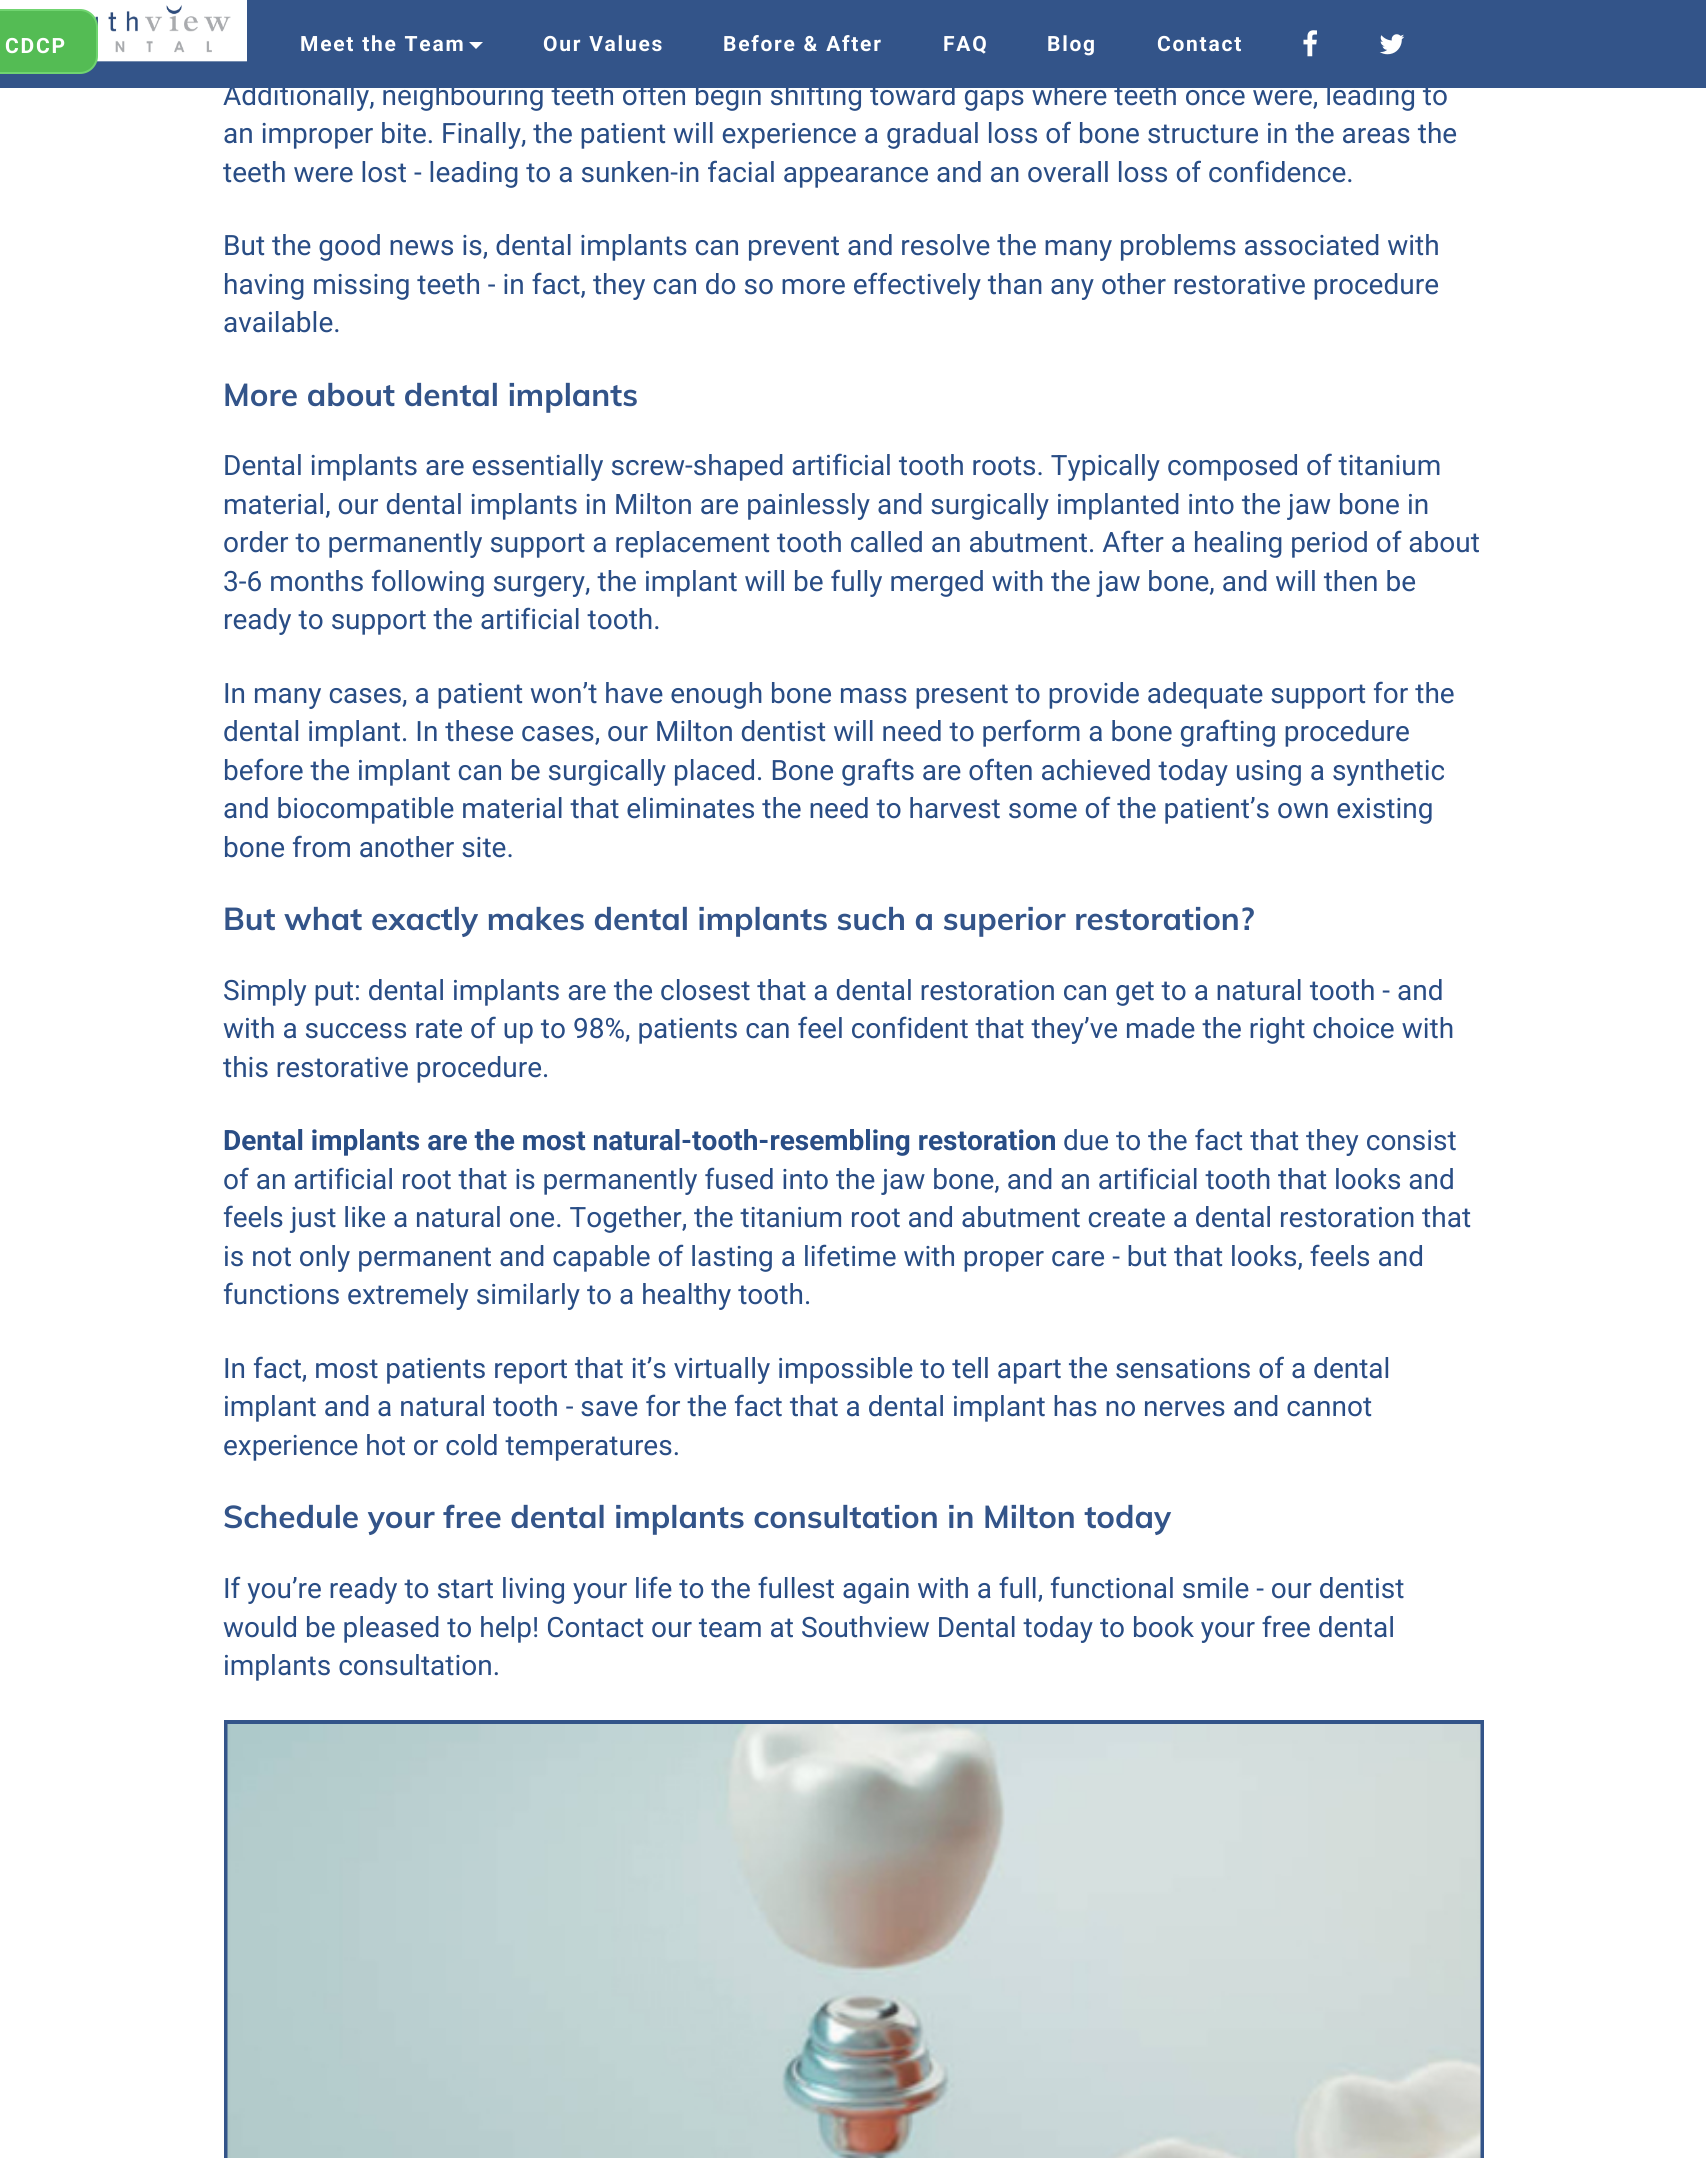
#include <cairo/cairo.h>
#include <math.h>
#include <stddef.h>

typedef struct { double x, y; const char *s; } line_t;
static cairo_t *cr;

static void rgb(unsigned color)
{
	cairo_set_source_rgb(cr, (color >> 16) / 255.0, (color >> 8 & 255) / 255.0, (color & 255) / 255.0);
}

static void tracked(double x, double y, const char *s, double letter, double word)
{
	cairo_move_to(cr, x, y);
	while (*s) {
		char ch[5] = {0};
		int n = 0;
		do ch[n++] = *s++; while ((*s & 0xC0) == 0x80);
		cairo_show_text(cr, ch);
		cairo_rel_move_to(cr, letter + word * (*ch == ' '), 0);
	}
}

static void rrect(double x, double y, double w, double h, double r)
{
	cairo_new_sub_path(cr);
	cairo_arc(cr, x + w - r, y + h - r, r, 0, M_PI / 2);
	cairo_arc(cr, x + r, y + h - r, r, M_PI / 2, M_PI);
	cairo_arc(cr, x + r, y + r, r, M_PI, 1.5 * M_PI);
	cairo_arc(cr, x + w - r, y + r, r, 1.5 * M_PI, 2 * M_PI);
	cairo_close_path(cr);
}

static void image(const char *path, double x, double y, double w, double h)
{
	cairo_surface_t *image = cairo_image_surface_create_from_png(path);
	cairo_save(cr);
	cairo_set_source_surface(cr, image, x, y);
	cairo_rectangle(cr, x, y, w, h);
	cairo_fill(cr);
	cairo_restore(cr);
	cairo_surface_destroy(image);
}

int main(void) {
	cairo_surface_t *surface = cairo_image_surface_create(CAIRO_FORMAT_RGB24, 1706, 2158);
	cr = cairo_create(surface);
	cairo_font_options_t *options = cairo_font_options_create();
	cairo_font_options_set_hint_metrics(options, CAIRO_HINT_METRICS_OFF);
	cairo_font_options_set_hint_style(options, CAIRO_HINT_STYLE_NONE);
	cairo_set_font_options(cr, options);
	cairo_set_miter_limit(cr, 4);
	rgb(0xffffff);
	cairo_paint(cr);
	cairo_rectangle(cr, 226, 1722, 1256, 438);
	rgb(0x335489);
	cairo_set_line_width(cr, 4);
	cairo_stroke(cr);
	image("img/4.png", 227, 1724, 1254, 434);
	cairo_select_font_face(cr, "Roboto", CAIRO_FONT_SLANT_NORMAL, CAIRO_FONT_WEIGHT_NORMAL);
	cairo_set_font_size(cr, 28);
	rgb(0x294d85);
	cairo_move_to(cr, 223, 105);
	cairo_show_text(cr, "Additionally, neighbouring teeth often begin shifting toward gaps where teeth once were, leading to");
	rgb(0x335489);
	cairo_rectangle(cr, 0, 0, 1706, 88);
	cairo_fill(cr);
	image("img/3.png", 1379, 34, 26, 21);
	image("img/2.png", 1303, 30, 14, 27);
	cairo_select_font_face(cr, "Roboto", CAIRO_FONT_SLANT_NORMAL, CAIRO_FONT_WEIGHT_BOLD);
	cairo_set_font_size(cr, 21);
	rgb(0xffffff);
	{
		static const line_t items[] = {
			{1157, 51, "Contact"},
			{1047, 51, "Blog"},
			{943, 51, "FAQ"},
			{723, 51, "Before & After"},
			{543, 51, "Our Values"},
		};
		for (size_t i = 0; i < sizeof items / sizeof *items; i++) {
			tracked(items[i].x, items[i].y, items[i].s, 1.75, 0);
		}
	}
	cairo_new_path(cr);
	cairo_move_to(cr, 469, 42);
	cairo_line_to(cr, 483, 42);
	cairo_line_to(cr, 476, 49);
	cairo_close_path(cr);
	cairo_fill(cr);
	tracked(300, 51, "Meet the Team", 1.75, 0);
	image("img/1.png", 0, 0, 247, 62);
	rgb(0x54bc54);
	rrect(-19, 10, 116, 63, 17);
	cairo_fill_preserve(cr);
	rgb(0x70d470);
	cairo_set_line_width(cr, 2);
	cairo_stroke(cr);
	rgb(0xffffff);
	tracked(5, 53, "CDCP", 1.75, 0);
	cairo_select_font_face(cr, "Roboto", CAIRO_FONT_SLANT_NORMAL, CAIRO_FONT_WEIGHT_NORMAL);
	cairo_set_font_size(cr, 28);
	rgb(0x294d85);
	{
		static const line_t items[] = {
			{223, 143, "an improper bite. Finally, the patient will experience a gradual loss of bone structure in the areas the"},
			{223, 182, "teeth were lost - leading to a sunken-in facial appearance and an overall loss of confidence."},
			{223, 255, "But the good news is, dental implants can prevent and resolve the many problems associated with"},
			{223, 294, "having missing teeth - in fact, they can do so more effectively than any other restorative procedure"},
			{223, 332, "available."},
		};
		for (size_t i = 0; i < sizeof items / sizeof *items; i++) {
			cairo_move_to(cr, items[i].x, items[i].y);
			cairo_show_text(cr, items[i].s);
		}
	}
	cairo_select_font_face(cr, "Muli", CAIRO_FONT_SLANT_NORMAL, CAIRO_FONT_WEIGHT_BOLD);
	cairo_set_font_size(cr, 31.5);
	rgb(0x335489);
	cairo_move_to(cr, 223, 406);
	cairo_show_text(cr, "More about dental implants");
	cairo_select_font_face(cr, "Roboto", CAIRO_FONT_SLANT_NORMAL, CAIRO_FONT_WEIGHT_NORMAL);
	cairo_set_font_size(cr, 28);
	rgb(0x294d85);
	{
		static const line_t items[] = {
			{223, 475, "Dental implants are essentially screw-shaped artificial tooth roots. Typically composed of titanium"},
			{223, 514, "material, our dental implants in Milton are painlessly and surgically implanted into the jaw bone in"},
			{223, 552, "order to permanently support a replacement tooth called an abutment. After a healing period of about"},
			{223, 591, "3-6 months following surgery, the implant will be fully merged with the jaw bone, and will then be"},
			{223, 629, "ready to support the artificial tooth."},
			{223, 703, "In many cases, a patient won’t have enough bone mass present to provide adequate support for the"},
			{223, 741, "dental implant. In these cases, our Milton dentist will need to perform a bone grafting procedure"},
			{223, 780, "before the implant can be surgically placed. Bone grafts are often achieved today using a synthetic"},
			{223, 818, "and biocompatible material that eliminates the need to harvest some of the patient’s own existing"},
			{223, 857, "bone from another site."},
		};
		for (size_t i = 0; i < sizeof items / sizeof *items; i++) {
			cairo_move_to(cr, items[i].x, items[i].y);
			cairo_show_text(cr, items[i].s);
		}
	}
	cairo_select_font_face(cr, "Muli", CAIRO_FONT_SLANT_NORMAL, CAIRO_FONT_WEIGHT_BOLD);
	cairo_set_font_size(cr, 31.5);
	rgb(0x335489);
	cairo_move_to(cr, 223, 930);
	cairo_show_text(cr, "But what exactly makes dental implants such a superior restoration?");
	cairo_select_font_face(cr, "Roboto", CAIRO_FONT_SLANT_NORMAL, CAIRO_FONT_WEIGHT_NORMAL);
	cairo_set_font_size(cr, 28);
	rgb(0x294d85);
	{
		static const line_t items[] = {
			{223, 1000, "Simply put: dental implants are the closest that a dental restoration can get to a natural tooth - and"},
			{223, 1038, "with a success rate of up to 98%, patients can feel confident that they’ve made the right choice with"},
			{223, 1077, "this restorative procedure."},
		};
		for (size_t i = 0; i < sizeof items / sizeof *items; i++) {
			cairo_move_to(cr, items[i].x, items[i].y);
			cairo_show_text(cr, items[i].s);
		}
	}
	cairo_select_font_face(cr, "Roboto", CAIRO_FONT_SLANT_NORMAL, CAIRO_FONT_WEIGHT_BOLD);
	cairo_move_to(cr, 223, 1150);
	cairo_show_text(cr, "Dental implants are the most natural-tooth-resembling restoration");
	cairo_select_font_face(cr, "Roboto", CAIRO_FONT_SLANT_NORMAL, CAIRO_FONT_WEIGHT_NORMAL);
	{
		static const line_t items[] = {
			{1063, 1150, "due to the fact that they consist"},
			{223, 1189, "of an artificial root that is permanently fused into the jaw bone, and an artificial tooth that looks and"},
			{223, 1227, "feels just like a natural one. Together, the titanium root and abutment create a dental restoration that"},
			{223, 1266, "is not only permanent and capable of lasting a lifetime with proper care - but that looks, feels and"},
			{223, 1304, "functions extremely similarly to a healthy tooth."},
			{223, 1378, "In fact, most patients report that it’s virtually impossible to tell apart the sensations of a dental"},
			{223, 1416, "implant and a natural tooth - save for the fact that a dental implant has no nerves and cannot"},
			{223, 1455, "experience hot or cold temperatures."},
		};
		for (size_t i = 0; i < sizeof items / sizeof *items; i++) {
			cairo_move_to(cr, items[i].x, items[i].y);
			cairo_show_text(cr, items[i].s);
		}
	}
	cairo_select_font_face(cr, "Muli", CAIRO_FONT_SLANT_NORMAL, CAIRO_FONT_WEIGHT_BOLD);
	cairo_set_font_size(cr, 31.5);
	rgb(0x335489);
	cairo_move_to(cr, 223, 1528);
	cairo_show_text(cr, "Schedule your free dental implants consultation in Milton today");
	cairo_select_font_face(cr, "Roboto", CAIRO_FONT_SLANT_NORMAL, CAIRO_FONT_WEIGHT_NORMAL);
	cairo_set_font_size(cr, 28);
	rgb(0x294d85);
	{
		static const line_t items[] = {
			{223, 1598, "If you’re ready to start living your life to the fullest again with a full, functional smile - our dentist"},
			{223, 1637, "would be pleased to help! Contact our team at Southview Dental today to book your free dental"},
			{223, 1675, "implants consultation."},
		};
		for (size_t i = 0; i < sizeof items / sizeof *items; i++) {
			cairo_move_to(cr, items[i].x, items[i].y);
			cairo_show_text(cr, items[i].s);
		}
	}
	cairo_surface_write_to_png(surface, "page.png");
	cairo_font_options_destroy(options);
	cairo_destroy(cr);
	cairo_surface_destroy(surface);
	return 0;
}
